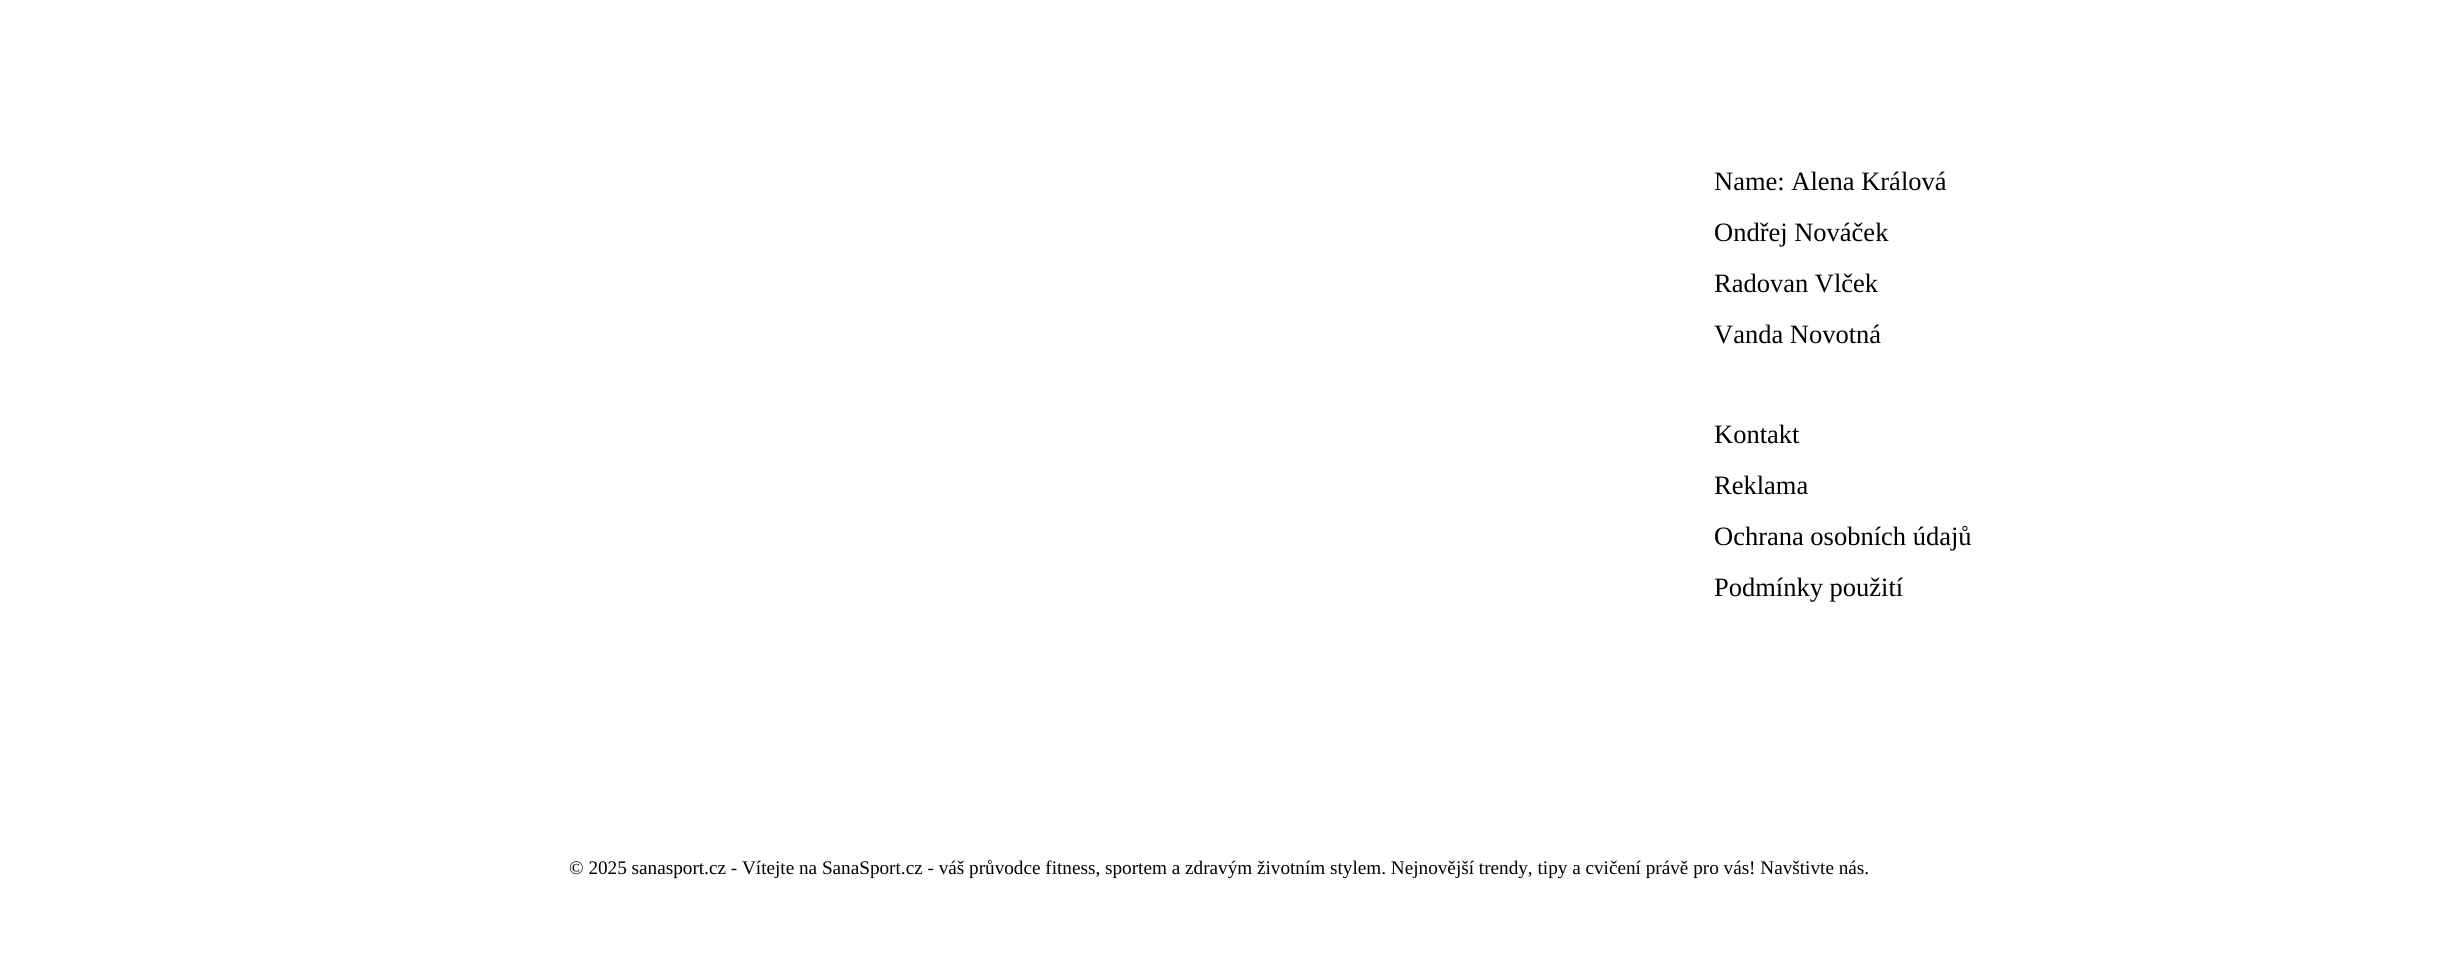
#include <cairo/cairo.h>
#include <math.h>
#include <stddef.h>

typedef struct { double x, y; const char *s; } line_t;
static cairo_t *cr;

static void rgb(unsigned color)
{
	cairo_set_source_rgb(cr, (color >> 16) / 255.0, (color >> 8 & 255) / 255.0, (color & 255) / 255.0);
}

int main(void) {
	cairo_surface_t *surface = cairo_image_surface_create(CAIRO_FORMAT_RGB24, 2437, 955);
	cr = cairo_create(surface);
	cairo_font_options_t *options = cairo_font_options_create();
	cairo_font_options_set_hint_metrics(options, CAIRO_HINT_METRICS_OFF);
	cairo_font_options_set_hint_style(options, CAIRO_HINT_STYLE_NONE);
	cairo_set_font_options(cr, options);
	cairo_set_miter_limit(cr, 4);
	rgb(0xffffff);
	cairo_paint(cr);
	cairo_select_font_face(cr, "Liberation Serif", CAIRO_FONT_SLANT_NORMAL, CAIRO_FONT_WEIGHT_NORMAL);
	cairo_set_font_size(cr, 26.5);
	rgb(0x000000);
	{
		static const line_t items[] = {
			{1714, 190, "Name: Alena Králová"},
			{1714, 241, "Ondřej Nováček"},
			{1714, 292, "Radovan Vlček"},
			{1714, 343, "Vanda Novotná"},
			{1714, 443, "Kontakt"},
			{1714, 494, "Reklama"},
			{1714, 545, "Ochrana osobních údajů"},
			{1714, 596, "Podmínky použití"},
		};
		for (size_t i = 0; i < sizeof items / sizeof *items; i++) {
			cairo_move_to(cr, items[i].x, items[i].y);
			cairo_show_text(cr, items[i].s);
		}
	}
	cairo_set_font_size(cr, 19.2);
	cairo_move_to(cr, 569, 874);
	cairo_show_text(cr, "© 2025 sanasport.cz - Vítejte na SanaSport.cz - váš průvodce fitness, sportem a zdravým životním stylem. Nejnovější trendy, tipy a cvičení právě pro vás! Navštivte nás.");
	cairo_surface_write_to_png(surface, "page.png");
	cairo_font_options_destroy(options);
	cairo_destroy(cr);
	cairo_surface_destroy(surface);
	return 0;
}
